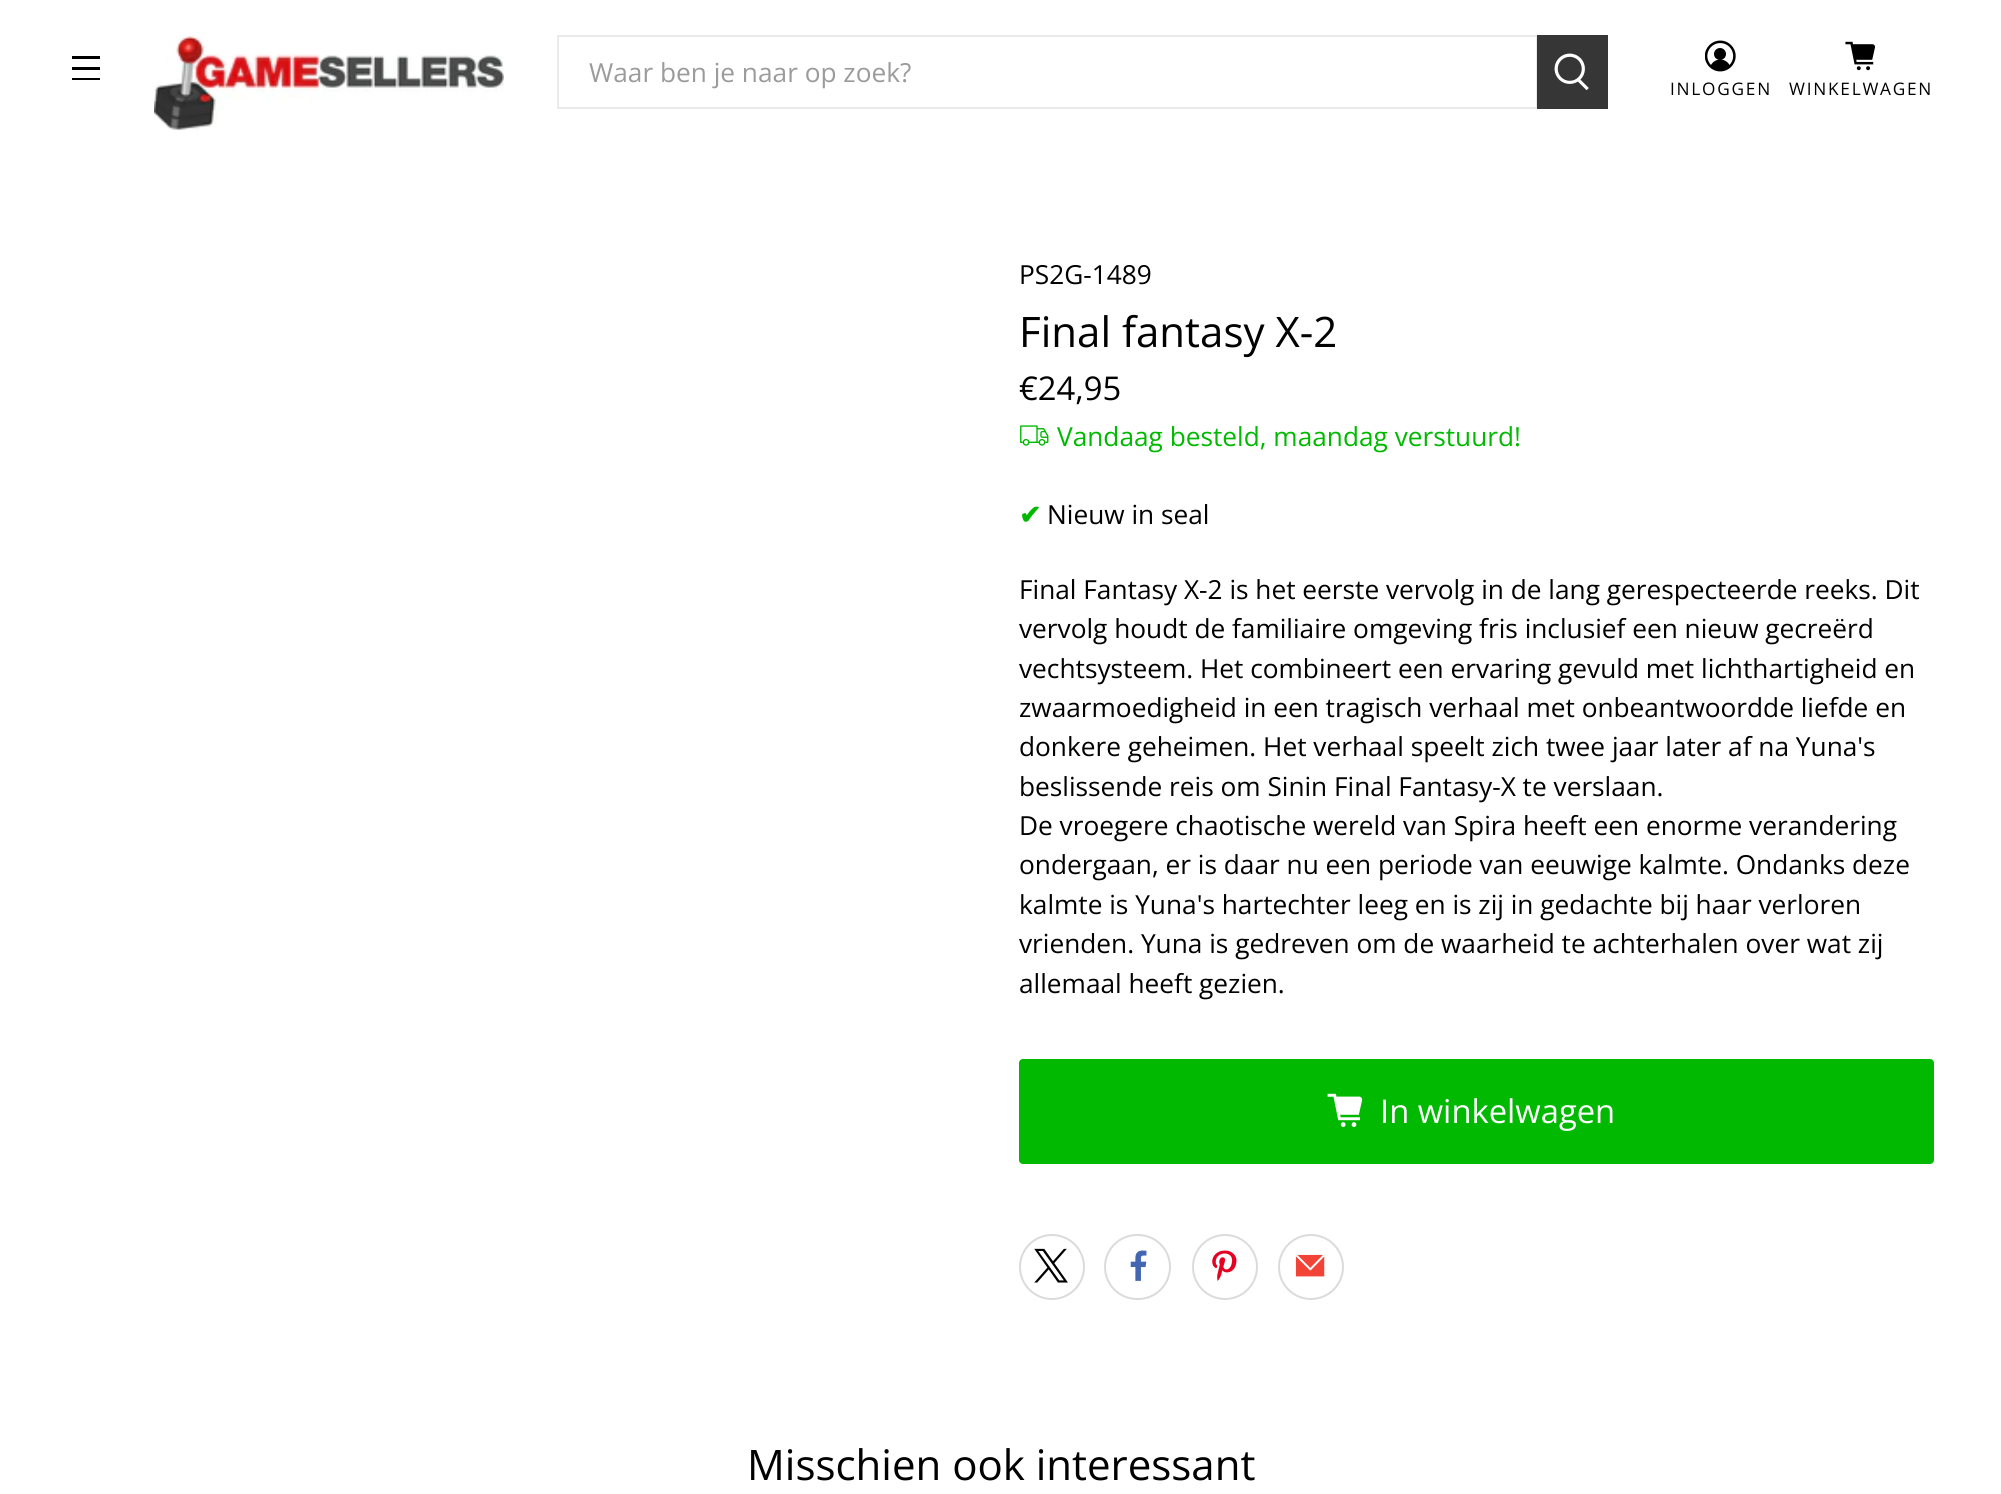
#include <cairo/cairo.h>
#include <math.h>
#include <stddef.h>

typedef struct { double x, y; const char *s; } line_t;
typedef struct { double x, y, w, h; unsigned color; } box_t;
static cairo_t *cr;

static void rgb(unsigned color)
{
	cairo_set_source_rgb(cr, (color >> 16) / 255.0, (color >> 8 & 255) / 255.0, (color & 255) / 255.0);
}

static void tracked(double x, double y, const char *s, double letter, double word)
{
	cairo_move_to(cr, x, y);
	while (*s) {
		char ch[5] = {0};
		int n = 0;
		do ch[n++] = *s++; while ((*s & 0xC0) == 0x80);
		cairo_show_text(cr, ch);
		cairo_rel_move_to(cr, letter + word * (*ch == ' '), 0);
	}
}

static void rrect(double x, double y, double w, double h, double r)
{
	cairo_new_sub_path(cr);
	cairo_arc(cr, x + w - r, y + h - r, r, 0, M_PI / 2);
	cairo_arc(cr, x + r, y + h - r, r, M_PI / 2, M_PI);
	cairo_arc(cr, x + r, y + r, r, M_PI, 1.5 * M_PI);
	cairo_arc(cr, x + w - r, y + r, r, 1.5 * M_PI, 2 * M_PI);
	cairo_close_path(cr);
}

static void image(const char *path, double x, double y, double w, double h)
{
	cairo_surface_t *image = cairo_image_surface_create_from_png(path);
	cairo_save(cr);
	cairo_set_source_surface(cr, image, x, y);
	cairo_rectangle(cr, x, y, w, h);
	cairo_fill(cr);
	cairo_restore(cr);
	cairo_surface_destroy(image);
}

int main(void) {
	cairo_surface_t *surface = cairo_image_surface_create(CAIRO_FORMAT_RGB24, 2001, 1494);
	cr = cairo_create(surface);
	cairo_font_options_t *options = cairo_font_options_create();
	cairo_font_options_set_hint_metrics(options, CAIRO_HINT_METRICS_OFF);
	cairo_font_options_set_hint_style(options, CAIRO_HINT_STYLE_NONE);
	cairo_set_font_options(cr, options);
	cairo_set_miter_limit(cr, 4);
	rgb(0xffffff);
	cairo_paint(cr);
	{
		static const box_t items[] = {
			{72, 56, 28, 3, 0x000000},
			{72, 67, 28, 3, 0x000000},
			{72, 78, 28, 2, 0x000000},
		};
		for (size_t i = 0; i < sizeof items / sizeof *items; i++) {
			rgb(items[i].color);
			cairo_rectangle(cr, items[i].x, items[i].y, items[i].w, items[i].h);
			cairo_fill(cr);
		}
	}
	image("img/1.png", 154, 32, 350, 99);
	cairo_rectangle(cr, 558, 36, 979, 72);
	rgb(0xeaeaea);
	cairo_stroke(cr);
	rgb(0x363636);
	cairo_rectangle(cr, 1537, 35, 71, 74);
	cairo_fill(cr);
	image("img/2.png", 1554, 53, 35, 38);
	image("img/3.png", 1705, 40, 31, 32);
	image("img/4.png", 1845, 41, 30, 30);
	image("img/5.png", 1020, 425, 29, 21);
	rgb(0x00b900);
	rrect(1019, 1059, 915, 105, 4);
	cairo_fill(cr);
	image("img/6.png", 1327, 1093, 36, 34);
	cairo_arc(cr, 1052, 1267, 32, 0, 2 * M_PI);
	rgb(0xdbdbdb);
	cairo_stroke(cr);
	image("img/7.png", 1034, 1248, 34, 35);
	rrect(1105, 1235, 65, 64, 32);
	cairo_stroke(cr);
	image("img/8.png", 1130, 1250, 17, 31);
	cairo_arc(cr, 1225, 1267, 32, 0, 2 * M_PI);
	cairo_stroke(cr);
	image("img/9.png", 1212, 1250, 25, 31);
	cairo_arc(cr, 1311, 1267, 32, 0, 2 * M_PI);
	cairo_stroke(cr);
	image("img/10.png", 1295, 1254, 30, 23);
	cairo_select_font_face(cr, "Open Sans", CAIRO_FONT_SLANT_NORMAL, CAIRO_FONT_WEIGHT_NORMAL);
	cairo_set_font_size(cr, 26.25);
	rgb(0x9b9b9b);
	cairo_move_to(cr, 589, 82);
	cairo_show_text(cr, "Waar ben je naar op zoek?");
	cairo_set_font_size(cr, 17.25);
	rgb(0x000000);
	tracked(1670, 95, "INLOGGEN", 1.75, 0);
	tracked(1789, 95, "WINKELWAGEN", 1.75, 0);
	cairo_set_font_size(cr, 26.25);
	cairo_move_to(cr, 1019, 284);
	cairo_show_text(cr, "PS2G-1489");
	cairo_set_font_size(cr, 42);
	cairo_move_to(cr, 1019, 347);
	cairo_show_text(cr, "Final fantasy X-2");
	cairo_set_font_size(cr, 32.75);
	cairo_move_to(cr, 1019, 400);
	cairo_show_text(cr, "€24,95");
	cairo_set_font_size(cr, 26.25);
	rgb(0x00b900);
	cairo_move_to(cr, 1057, 446);
	cairo_show_text(cr, "Vandaag besteld, maandag verstuurd!");
	cairo_select_font_face(cr, "DejaVu Sans", CAIRO_FONT_SLANT_NORMAL, CAIRO_FONT_WEIGHT_BOLD);
	cairo_move_to(cr, 1019, 524);
	cairo_show_text(cr, "✔");
	cairo_select_font_face(cr, "Open Sans", CAIRO_FONT_SLANT_NORMAL, CAIRO_FONT_WEIGHT_NORMAL);
	rgb(0x000000);
	{
		static const line_t items[] = {
			{1047, 524, "Nieuw in seal"},
			{1019, 599, "Final Fantasy X-2 is het eerste vervolg in de lang gerespecteerde reeks. Dit"},
			{1019, 638, "vervolg houdt de familiaire omgeving fris inclusief een nieuw gecreërd"},
			{1019, 678, "vechtsysteem. Het combineert een ervaring gevuld met lichthartigheid en"},
			{1019, 717, "zwaarmoedigheid in een tragisch verhaal met onbeantwoordde liefde en"},
			{1019, 756, "donkere geheimen. Het verhaal speelt zich twee jaar later af na Yuna's"},
			{1019, 796, "beslissende reis om Sinin Final Fantasy-X te verslaan."},
			{1019, 835, "De vroegere chaotische wereld van Spira heeft een enorme verandering"},
			{1019, 874, "ondergaan, er is daar nu een periode van eeuwige kalmte. Ondanks deze"},
			{1019, 914, "kalmte is Yuna's hartechter leeg en is zij in gedachte bij haar verloren"},
			{1019, 953, "vrienden. Yuna is gedreven om de waarheid te achterhalen over wat zij"},
			{1019, 993, "allemaal heeft gezien."},
		};
		for (size_t i = 0; i < sizeof items / sizeof *items; i++) {
			cairo_move_to(cr, items[i].x, items[i].y);
			cairo_show_text(cr, items[i].s);
		}
	}
	cairo_set_font_size(cr, 32.75);
	rgb(0xffffff);
	cairo_move_to(cr, 1380, 1123);
	cairo_show_text(cr, "In winkelwagen");
	cairo_set_font_size(cr, 42);
	rgb(0x000000);
	cairo_move_to(cr, 747, 1480);
	cairo_show_text(cr, "Misschien ook interessant");
	cairo_surface_write_to_png(surface, "page.png");
	cairo_font_options_destroy(options);
	cairo_destroy(cr);
	cairo_surface_destroy(surface);
	return 0;
}
